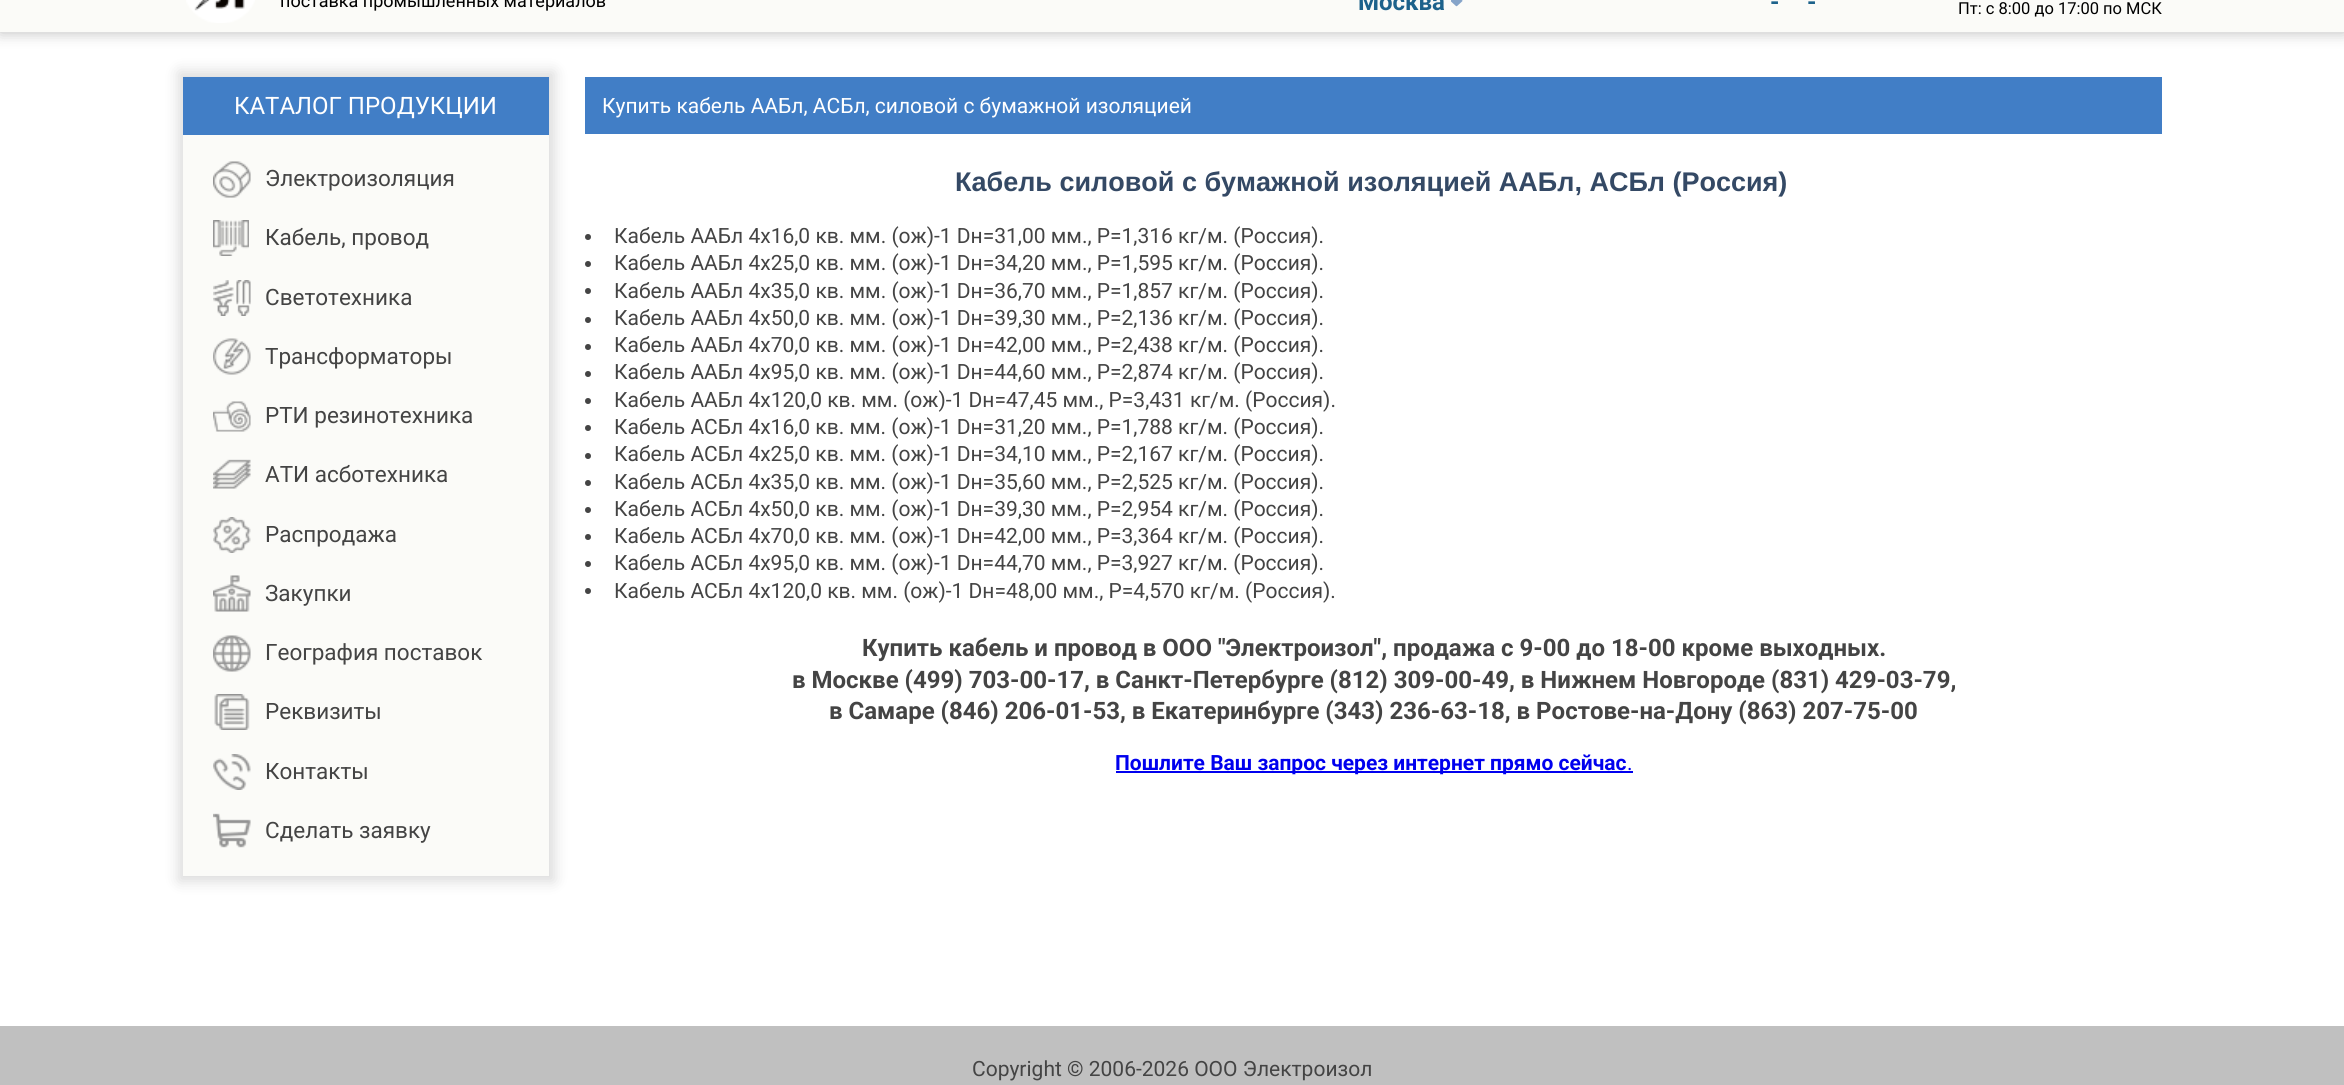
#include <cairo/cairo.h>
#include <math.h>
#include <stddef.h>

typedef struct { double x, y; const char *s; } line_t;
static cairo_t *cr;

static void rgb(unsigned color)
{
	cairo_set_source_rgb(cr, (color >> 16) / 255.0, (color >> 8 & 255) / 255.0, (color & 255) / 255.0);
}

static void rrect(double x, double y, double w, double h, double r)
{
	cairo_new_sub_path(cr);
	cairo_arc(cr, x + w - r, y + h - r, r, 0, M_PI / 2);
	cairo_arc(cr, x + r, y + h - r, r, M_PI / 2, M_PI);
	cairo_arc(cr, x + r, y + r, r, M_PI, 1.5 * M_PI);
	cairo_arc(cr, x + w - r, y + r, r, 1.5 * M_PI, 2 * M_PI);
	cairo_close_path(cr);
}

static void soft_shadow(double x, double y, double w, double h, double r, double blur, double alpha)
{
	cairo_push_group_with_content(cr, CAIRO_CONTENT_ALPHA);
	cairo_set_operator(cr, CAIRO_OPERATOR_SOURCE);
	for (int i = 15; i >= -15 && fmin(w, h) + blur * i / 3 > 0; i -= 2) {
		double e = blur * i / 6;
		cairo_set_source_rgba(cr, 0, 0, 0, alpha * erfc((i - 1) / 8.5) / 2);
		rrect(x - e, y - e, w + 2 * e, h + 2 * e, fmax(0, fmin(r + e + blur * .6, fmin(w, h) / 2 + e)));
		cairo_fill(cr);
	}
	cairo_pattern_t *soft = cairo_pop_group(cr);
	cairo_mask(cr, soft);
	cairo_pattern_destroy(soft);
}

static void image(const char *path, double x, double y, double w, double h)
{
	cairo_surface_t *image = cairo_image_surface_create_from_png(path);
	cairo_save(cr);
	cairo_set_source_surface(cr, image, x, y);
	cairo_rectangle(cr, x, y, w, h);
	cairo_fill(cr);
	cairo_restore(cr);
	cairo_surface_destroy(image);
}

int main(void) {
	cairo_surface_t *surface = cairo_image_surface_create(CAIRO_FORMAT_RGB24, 2344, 1085);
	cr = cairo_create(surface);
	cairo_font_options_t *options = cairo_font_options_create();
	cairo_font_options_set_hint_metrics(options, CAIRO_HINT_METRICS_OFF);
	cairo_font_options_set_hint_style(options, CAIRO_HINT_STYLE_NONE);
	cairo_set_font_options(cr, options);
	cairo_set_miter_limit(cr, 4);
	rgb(0xffffff);
	cairo_paint(cr);
	rgb(0x000000);
	soft_shadow(0, -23, 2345, 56, 0, 7.5, 0.25);
	rgb(0xfbfbf8);
	cairo_rectangle(cr, 0, 0, 2344, 32);
	cairo_fill(cr);
	image("img/1.png", 186, 0, 69, 23);
	image("img/2.png", 1451, 0, 12, 7);
	rgb(0x000000);
	soft_shadow(179, 72, 375, 809, 0, 7.5, 0.15);
	rgb(0xfbfbf8);
	cairo_rectangle(cr, 183, 135, 366, 741);
	cairo_fill(cr);
	rgb(0x417ec6);
	cairo_rectangle(cr, 183, 77, 366, 58);
	cairo_fill(cr);
	image("img/3.png", 213, 161, 38, 37);
	image("img/4.png", 213, 220, 36, 36);
	image("img/5.png", 213, 280, 38, 36);
	image("img/6.png", 213, 338, 38, 37);
	image("img/7.png", 213, 401, 38, 31);
	image("img/8.png", 213, 459, 38, 30);
	image("img/9.png", 213, 517, 38, 36);
	image("img/10.png", 213, 575, 38, 37);
	image("img/11.png", 213, 635, 38, 37);
	image("img/12.png", 214, 694, 36, 36);
	image("img/13.png", 213, 754, 38, 36);
	image("img/14.png", 213, 813, 38, 35);
	cairo_rectangle(cr, 585, 77, 1577, 57);
	cairo_fill(cr);
	rgb(0x444444);
	cairo_arc(cr, 588, 237, 3, 0, 2 * M_PI);
	cairo_fill(cr);
	cairo_arc(cr, 588, 264, 3, 0, 2 * M_PI);
	cairo_fill(cr);
	cairo_arc(cr, 588, 291, 3, 0, 2 * M_PI);
	cairo_fill(cr);
	cairo_arc(cr, 588, 320, 3, 0, 2 * M_PI);
	cairo_fill(cr);
	cairo_arc(cr, 588, 347, 3, 0, 2 * M_PI);
	cairo_fill(cr);
	cairo_arc(cr, 588, 374, 3, 0, 2 * M_PI);
	cairo_fill(cr);
	cairo_arc(cr, 588, 401, 3, 0, 2 * M_PI);
	cairo_fill(cr);
	cairo_arc(cr, 588, 428, 3, 0, 2 * M_PI);
	cairo_fill(cr);
	cairo_arc(cr, 588, 456, 3, 0, 2 * M_PI);
	cairo_fill(cr);
	cairo_arc(cr, 588, 483, 3, 0, 2 * M_PI);
	cairo_fill(cr);
	cairo_arc(cr, 588, 510, 3, 0, 2 * M_PI);
	cairo_fill(cr);
	cairo_arc(cr, 588, 537, 3, 0, 2 * M_PI);
	cairo_fill(cr);
	cairo_arc(cr, 588, 564, 3, 0, 2 * M_PI);
	cairo_fill(cr);
	cairo_arc(cr, 588, 591, 3, 0, 2 * M_PI);
	cairo_fill(cr);
	rgb(0x0000ee);
	cairo_rectangle(cr, 1116, 771, 517, 2);
	cairo_fill(cr);
	rgb(0xc0c0c0);
	cairo_rectangle(cr, 0, 1026, 2344, 59);
	cairo_fill(cr);
	cairo_select_font_face(cr, "Roboto", CAIRO_FONT_SLANT_NORMAL, CAIRO_FONT_WEIGHT_NORMAL);
	cairo_set_font_size(cr, 18);
	rgb(0x000000);
	cairo_move_to(cr, 280, 7);
	cairo_show_text(cr, "поставка промышленных материалов");
	cairo_select_font_face(cr, "Roboto", CAIRO_FONT_SLANT_NORMAL, CAIRO_FONT_WEIGHT_BOLD);
	cairo_set_font_size(cr, 24);
	rgb(0x1d628b);
	{
		static const line_t items[] = {
			{1358, 10, "Москва"},
			{1770, 10, "-"},
			{1807, 10, "-"},
		};
		for (size_t i = 0; i < sizeof items / sizeof *items; i++) {
			cairo_move_to(cr, items[i].x, items[i].y);
			cairo_show_text(cr, items[i].s);
		}
	}
	cairo_select_font_face(cr, "Roboto", CAIRO_FONT_SLANT_NORMAL, CAIRO_FONT_WEIGHT_NORMAL);
	cairo_set_font_size(cr, 16.5);
	rgb(0x000000);
	cairo_move_to(cr, 1958, 14);
	cairo_show_text(cr, "Пт: с 8:00 до 17:00 по МСК");
	cairo_set_font_size(cr, 24);
	rgb(0xffffff);
	cairo_move_to(cr, 234, 114);
	cairo_show_text(cr, "КАТАЛОГ ПРОДУКЦИИ");
	cairo_set_font_size(cr, 22.5);
	rgb(0x444444);
	{
		static const line_t items[] = {
			{265, 186, "Электроизоляция"},
			{265, 245, "Кабель, провод"},
			{265, 305, "Светотехника"},
			{265, 364, "Трансформаторы"},
			{265, 423, "РТИ резинотехника"},
			{265, 482, "АТИ асботехника"},
			{265, 542, "Распродажа"},
			{265, 601, "Закупки"},
			{265, 660, "География поставок"},
			{265, 719, "Реквизиты"},
			{265, 779, "Контакты"},
			{265, 838, "Сделать заявку"},
		};
		for (size_t i = 0; i < sizeof items / sizeof *items; i++) {
			cairo_move_to(cr, items[i].x, items[i].y);
			cairo_show_text(cr, items[i].s);
		}
	}
	cairo_set_font_size(cr, 21);
	rgb(0xffffff);
	cairo_move_to(cr, 602, 113);
	cairo_show_text(cr, "Купить кабель ААБл, АСБл, силовой с бумажной изоляцией");
	cairo_select_font_face(cr, "Liberation Sans", CAIRO_FONT_SLANT_NORMAL, CAIRO_FONT_WEIGHT_BOLD);
	cairo_set_font_size(cr, 27);
	rgb(0x344965);
	cairo_move_to(cr, 955, 191);
	cairo_show_text(cr, "Кабель силовой с бумажной изоляцией ААБл, АСБл (Россия)");
	cairo_select_font_face(cr, "Roboto", CAIRO_FONT_SLANT_NORMAL, CAIRO_FONT_WEIGHT_NORMAL);
	cairo_set_font_size(cr, 21);
	rgb(0x444444);
	{
		static const line_t items[] = {
			{614, 243, "Кабель ААБл 4х16,0 кв. мм. (ож)-1 Dн=31,00 мм., Р=1,316 кг/м. (Россия)."},
			{614, 270, "Кабель ААБл 4х25,0 кв. мм. (ож)-1 Dн=34,20 мм., Р=1,595 кг/м. (Россия)."},
			{614, 298, "Кабель ААБл 4х35,0 кв. мм. (ож)-1 Dн=36,70 мм., Р=1,857 кг/м. (Россия)."},
			{614, 325, "Кабель ААБл 4х50,0 кв. мм. (ож)-1 Dн=39,30 мм., Р=2,136 кг/м. (Россия)."},
			{614, 352, "Кабель ААБл 4х70,0 кв. мм. (ож)-1 Dн=42,00 мм., Р=2,438 кг/м. (Россия)."},
			{614, 379, "Кабель ААБл 4х95,0 кв. мм. (ож)-1 Dн=44,60 мм., Р=2,874 кг/м. (Россия)."},
			{614, 407, "Кабель ААБл 4х120,0 кв. мм. (ож)-1 Dн=47,45 мм., Р=3,431 кг/м. (Россия)."},
			{614, 434, "Кабель АСБл 4х16,0 кв. мм. (ож)-1 Dн=31,20 мм., Р=1,788 кг/м. (Россия)."},
			{614, 461, "Кабель АСБл 4х25,0 кв. мм. (ож)-1 Dн=34,10 мм., Р=2,167 кг/м. (Россия)."},
			{614, 489, "Кабель АСБл 4х35,0 кв. мм. (ож)-1 Dн=35,60 мм., Р=2,525 кг/м. (Россия)."},
			{614, 516, "Кабель АСБл 4х50,0 кв. мм. (ож)-1 Dн=39,30 мм., Р=2,954 кг/м. (Россия)."},
			{614, 543, "Кабель АСБл 4х70,0 кв. мм. (ож)-1 Dн=42,00 мм., Р=3,364 кг/м. (Россия)."},
			{614, 570, "Кабель АСБл 4х95,0 кв. мм. (ож)-1 Dн=44,70 мм., Р=3,927 кг/м. (Россия)."},
			{614, 598, "Кабель АСБл 4х120,0 кв. мм. (ож)-1 Dн=48,00 мм., Р=4,570 кг/м. (Россия)."},
		};
		for (size_t i = 0; i < sizeof items / sizeof *items; i++) {
			cairo_move_to(cr, items[i].x, items[i].y);
			cairo_show_text(cr, items[i].s);
		}
	}
	cairo_select_font_face(cr, "Roboto", CAIRO_FONT_SLANT_NORMAL, CAIRO_FONT_WEIGHT_BOLD);
	cairo_set_font_size(cr, 24);
	{
		static const line_t items[] = {
			{862, 656, "Купить кабель и провод в ООО \"Электроизол\", продажа с 9-00 до 18-00 кроме выходных."},
			{792, 688, "в Москве (499) 703-00-17, в Санкт-Петербурге (812) 309-00-49, в Нижнем Новгороде (831) 429-03-79,"},
			{829, 719, "в Самаре (846) 206-01-53, в Екатеринбурге (343) 236-63-18, в Ростове-на-Дону (863) 207-75-00"},
		};
		for (size_t i = 0; i < sizeof items / sizeof *items; i++) {
			cairo_move_to(cr, items[i].x, items[i].y);
			cairo_show_text(cr, items[i].s);
		}
	}
	cairo_set_font_size(cr, 21);
	rgb(0x0000ee);
	cairo_move_to(cr, 1115, 770);
	cairo_show_text(cr, "Пошлите Ваш запрос через интернет прямо сейчас");
	cairo_select_font_face(cr, "Roboto", CAIRO_FONT_SLANT_NORMAL, CAIRO_FONT_WEIGHT_NORMAL);
	cairo_move_to(cr, 1627, 770);
	cairo_show_text(cr, ".");
	rgb(0x444444);
	cairo_move_to(cr, 972, 1076);
	cairo_show_text(cr, "Copyright © 2006-2026 ООО Электроизол");
	cairo_surface_write_to_png(surface, "page.png");
	cairo_font_options_destroy(options);
	cairo_destroy(cr);
	cairo_surface_destroy(surface);
	return 0;
}
